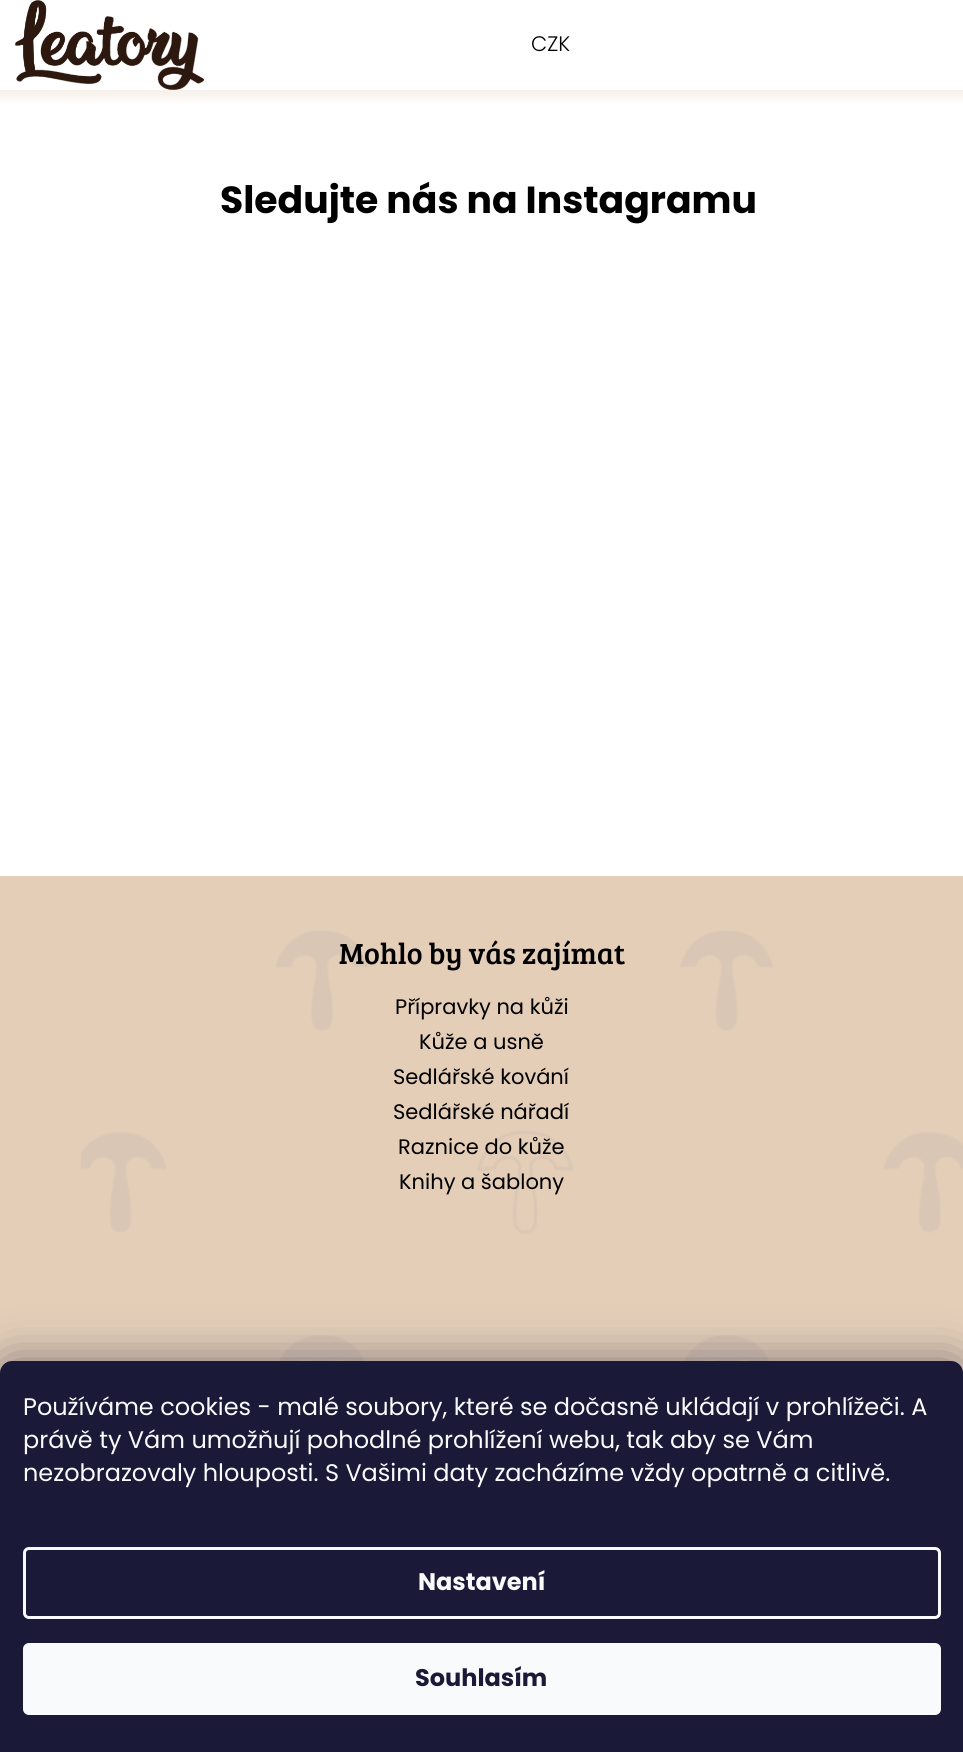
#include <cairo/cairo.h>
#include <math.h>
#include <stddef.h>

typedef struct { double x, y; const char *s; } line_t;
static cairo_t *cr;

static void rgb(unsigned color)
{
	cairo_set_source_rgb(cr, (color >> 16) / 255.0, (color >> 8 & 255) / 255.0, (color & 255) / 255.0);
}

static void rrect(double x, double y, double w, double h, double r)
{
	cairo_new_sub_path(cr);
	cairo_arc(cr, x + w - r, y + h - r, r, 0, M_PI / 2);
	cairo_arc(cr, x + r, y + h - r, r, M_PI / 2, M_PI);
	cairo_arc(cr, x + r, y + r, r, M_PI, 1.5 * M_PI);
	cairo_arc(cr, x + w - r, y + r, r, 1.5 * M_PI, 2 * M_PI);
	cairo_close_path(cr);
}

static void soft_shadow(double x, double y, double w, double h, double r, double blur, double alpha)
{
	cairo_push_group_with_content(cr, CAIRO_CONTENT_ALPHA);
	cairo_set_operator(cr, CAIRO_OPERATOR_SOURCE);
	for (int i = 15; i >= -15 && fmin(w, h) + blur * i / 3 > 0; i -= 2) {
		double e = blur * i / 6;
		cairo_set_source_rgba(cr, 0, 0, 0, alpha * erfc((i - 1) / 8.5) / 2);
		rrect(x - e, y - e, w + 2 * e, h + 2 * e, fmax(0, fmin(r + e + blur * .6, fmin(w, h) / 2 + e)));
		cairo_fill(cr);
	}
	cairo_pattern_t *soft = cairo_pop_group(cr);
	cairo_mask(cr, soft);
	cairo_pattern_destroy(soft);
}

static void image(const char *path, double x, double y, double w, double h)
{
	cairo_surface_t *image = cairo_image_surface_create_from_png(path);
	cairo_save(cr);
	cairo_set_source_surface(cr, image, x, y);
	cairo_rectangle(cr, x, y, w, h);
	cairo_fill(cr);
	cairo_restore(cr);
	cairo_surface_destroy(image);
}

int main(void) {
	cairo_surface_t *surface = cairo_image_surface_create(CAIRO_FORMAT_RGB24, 963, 1752);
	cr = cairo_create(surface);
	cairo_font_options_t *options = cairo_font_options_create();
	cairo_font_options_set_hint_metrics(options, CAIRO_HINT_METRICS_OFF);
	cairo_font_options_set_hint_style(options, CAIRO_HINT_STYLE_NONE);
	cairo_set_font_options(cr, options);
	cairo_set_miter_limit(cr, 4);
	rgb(0xffffff);
	cairo_paint(cr);
	rgb(0xe4ceb8);
	soft_shadow(-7, -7, 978, 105, 0, 4, 0.29);
	rgb(0xffffff);
	cairo_rectangle(cr, 0, 0, 963, 90);
	cairo_fill(cr);
	image("img/1.png", 15, 0, 190, 90);
	rgb(0xe4ceb8);
	cairo_rectangle(cr, 0, 876, 963, 497);
	cairo_fill(cr);
	image("img/2.png", 80, 930, 883, 431);
	rgb(0x1b1939);
	soft_shadow(0, 1361, 963, 391, 12, 22.5, 0.5);
	rgb(0x1a1937);
	cairo_new_path(cr);
	cairo_move_to(cr, 12, 1361);
	cairo_line_to(cr, 951, 1361);
	cairo_curve_to(cr, 957.5, 1361, 963, 1366.5, 963, 1373);
	cairo_line_to(cr, 963, 1752);
	cairo_line_to(cr, 0, 1752);
	cairo_line_to(cr, 0, 1373);
	cairo_curve_to(cr, 0, 1366.5, 5.5, 1361, 12, 1361);
	cairo_close_path(cr);
	cairo_fill(cr);
	rrect(24.5, 1548.5, 915, 69, 4.5);
	rgb(0xf8fafb);
	cairo_set_line_width(cr, 3);
	cairo_stroke(cr);
	rrect(23, 1643, 918, 72, 6);
	cairo_fill(cr);
	cairo_select_font_face(cr, "Poppins Light", CAIRO_FONT_SLANT_NORMAL, CAIRO_FONT_WEIGHT_NORMAL);
	cairo_set_font_size(cr, 21);
	rgb(0x000000);
	cairo_move_to(cr, 531, 51);
	cairo_show_text(cr, "CZK");
	cairo_select_font_face(cr, "Poppins", CAIRO_FONT_SLANT_NORMAL, CAIRO_FONT_WEIGHT_BOLD);
	cairo_set_font_size(cr, 37.75);
	cairo_move_to(cr, 220, 213);
	cairo_show_text(cr, "Sledujte nás na Instagramu");
	cairo_select_font_face(cr, "Bree Serif", CAIRO_FONT_SLANT_NORMAL, CAIRO_FONT_WEIGHT_NORMAL);
	cairo_set_font_size(cr, 30);
	cairo_move_to(cr, 339, 964);
	cairo_show_text(cr, "Mohlo by vás zajímat");
	cairo_select_font_face(cr, "Poppins", CAIRO_FONT_SLANT_NORMAL, CAIRO_FONT_WEIGHT_NORMAL);
	cairo_set_font_size(cr, 21);
	{
		static const line_t items[] = {
			{395, 1014, "Přípravky na kůži"},
			{419, 1049, "Kůže a usně"},
			{393, 1084, "Sedlářské kování"},
			{393, 1119, "Sedlářské nářadí"},
			{398, 1154, "Raznice do kůže"},
			{399, 1189, "Knihy a šablony"},
		};
		for (size_t i = 0; i < sizeof items / sizeof *items; i++) {
			cairo_move_to(cr, items[i].x, items[i].y);
			cairo_show_text(cr, items[i].s);
		}
	}
	cairo_set_font_size(cr, 24);
	rgb(0xf8fafb);
	{
		static const line_t items[] = {
			{23, 1415, "Používáme cookies - malé soubory, které se dočasně ukládají v prohlížeči. A"},
			{23, 1448, "právě ty Vám umožňují pohodlné prohlížení webu, tak aby se Vám"},
			{23, 1481, "nezobrazovaly hlouposti. S Vašimi daty zacházíme vždy opatrně a citlivě."},
		};
		for (size_t i = 0; i < sizeof items / sizeof *items; i++) {
			cairo_move_to(cr, items[i].x, items[i].y);
			cairo_show_text(cr, items[i].s);
		}
	}
	cairo_select_font_face(cr, "Poppins", CAIRO_FONT_SLANT_NORMAL, CAIRO_FONT_WEIGHT_BOLD);
	cairo_move_to(cr, 418, 1590);
	cairo_show_text(cr, "Nastavení");
	rgb(0x1a1937);
	cairo_move_to(cr, 415, 1686);
	cairo_show_text(cr, "Souhlasím");
	cairo_surface_write_to_png(surface, "page.png");
	cairo_font_options_destroy(options);
	cairo_destroy(cr);
	cairo_surface_destroy(surface);
	return 0;
}
